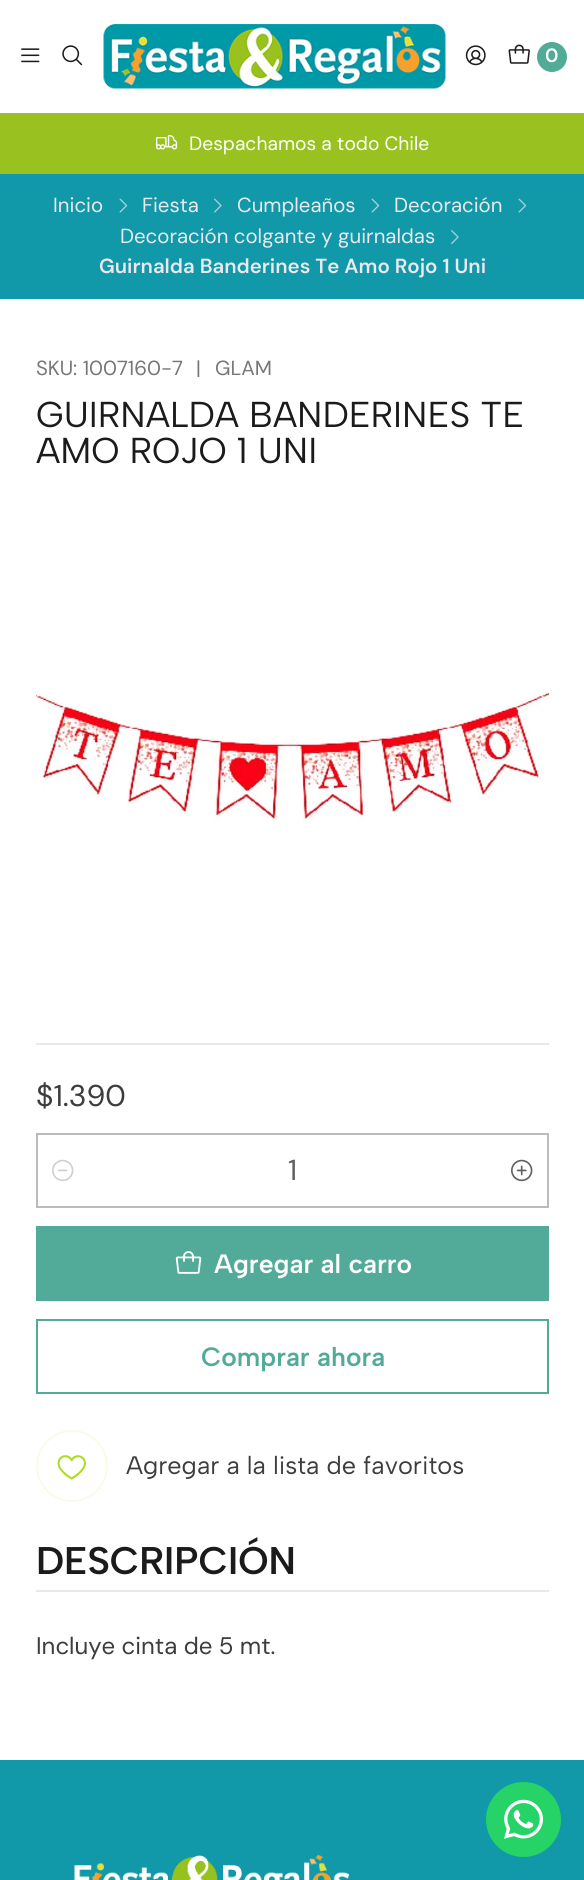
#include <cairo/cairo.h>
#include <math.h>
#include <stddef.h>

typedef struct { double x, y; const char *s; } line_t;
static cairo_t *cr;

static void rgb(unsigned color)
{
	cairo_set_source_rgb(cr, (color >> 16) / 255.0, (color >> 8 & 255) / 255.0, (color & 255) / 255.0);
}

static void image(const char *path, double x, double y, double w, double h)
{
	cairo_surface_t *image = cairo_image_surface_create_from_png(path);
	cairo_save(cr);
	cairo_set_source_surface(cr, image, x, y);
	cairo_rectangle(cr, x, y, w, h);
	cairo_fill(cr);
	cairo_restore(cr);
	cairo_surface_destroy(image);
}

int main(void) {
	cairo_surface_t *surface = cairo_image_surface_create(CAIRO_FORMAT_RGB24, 584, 1880);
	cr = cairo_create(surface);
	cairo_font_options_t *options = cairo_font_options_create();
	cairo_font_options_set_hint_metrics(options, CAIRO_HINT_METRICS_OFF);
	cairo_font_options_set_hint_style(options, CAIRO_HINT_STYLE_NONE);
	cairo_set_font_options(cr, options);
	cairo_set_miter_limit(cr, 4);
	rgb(0xffffff);
	cairo_paint(cr);
	image("img/1.png", 21, 48, 19, 15);
	image("img/2.png", 62, 45, 21, 21);
	image("img/3.png", 103, 24, 343, 65);
	image("img/4.png", 465, 45, 21, 21);
	image("img/5.png", 508, 44, 22, 20);
	rgb(0x52ab98);
	cairo_arc(cr, 552, 57, 15, 0, 2 * M_PI);
	cairo_fill(cr);
	rgb(0x99c221);
	cairo_rectangle(cr, 0, 113, 584, 61);
	cairo_fill(cr);
	image("img/6.png", 156, 135, 22, 15);
	rgb(0x1199aa);
	cairo_rectangle(cr, 0, 174, 584, 125);
	cairo_fill(cr);
	image("img/7.png", 119, 198, 9, 15);
	image("img/8.png", 214, 198, 8, 15);
	image("img/7.png", 371, 198, 9, 15);
	image("img/7.png", 518, 198, 9, 15);
	image("img/9.png", 451, 230, 8, 14);
	image("img/10.png", 36, 692, 513, 130);
	rgb(0xe8e8e8);
	cairo_rectangle(cr, 36, 1043, 513, 2);
	cairo_fill(cr);
	cairo_rectangle(cr, 37, 1134, 511, 73);
	rgb(0xbbbbbb);
	cairo_stroke(cr);
	image("img/11.png", 52, 1159, 22, 23);
	image("img/12.png", 511, 1159, 22, 23);
	rgb(0x52ab98);
	cairo_rectangle(cr, 36, 1226, 513, 75);
	cairo_fill(cr);
	image("img/13.png", 175, 1251, 27, 23);
	cairo_rectangle(cr, 37, 1320, 511, 73);
	cairo_stroke(cr);
	cairo_arc(cr, 72, 1466, 35, 0, 2 * M_PI);
	rgb(0xf7fce8);
	cairo_stroke(cr);
	image("img/14.png", 57, 1455, 29, 25);
	rgb(0xe8e8e8);
	cairo_rectangle(cr, 36, 1590, 513, 2);
	cairo_fill(cr);
	rgb(0x1199aa);
	cairo_rectangle(cr, 0, 1760, 584, 120);
	cairo_fill(cr);
	image("img/15.png", 74, 1854, 276, 26);
	rgb(0x25d366);
	cairo_arc(cr, 523.5, 1819.5, 37.5, 0, 2 * M_PI);
	cairo_fill(cr);
	image("img/16.png", 504, 1799, 39, 40);
	cairo_select_font_face(cr, "DM Sans SemiBold", CAIRO_FONT_SLANT_NORMAL, CAIRO_FONT_WEIGHT_NORMAL);
	cairo_set_font_size(cr, 19.25);
	rgb(0xffffff);
	cairo_move_to(cr, 545, 62);
	cairo_show_text(cr, "0");
	cairo_select_font_face(cr, "DM Sans", CAIRO_FONT_SLANT_NORMAL, CAIRO_FONT_WEIGHT_NORMAL);
	cairo_move_to(cr, 189, 150);
	cairo_show_text(cr, "Despachamos a todo Chile");
	cairo_set_font_size(cr, 20.4);
	rgb(0xebe9ec);
	{
		static const line_t items[] = {
			{53, 212, "Inicio"},
			{142, 212, "Fiesta"},
			{237, 212, "Cumpleaños"},
			{394, 212, "Decoración"},
			{120, 243, "Decoración colgante y guirnaldas"},
		};
		for (size_t i = 0; i < sizeof items / sizeof *items; i++) {
			cairo_move_to(cr, items[i].x, items[i].y);
			cairo_show_text(cr, items[i].s);
		}
	}
	cairo_select_font_face(cr, "DM Sans SemiBold", CAIRO_FONT_SLANT_NORMAL, CAIRO_FONT_WEIGHT_NORMAL);
	cairo_move_to(cr, 99, 273);
	cairo_show_text(cr, "Guirnalda Banderines Te Amo Rojo 1 Uni");
	cairo_select_font_face(cr, "DM Sans", CAIRO_FONT_SLANT_NORMAL, CAIRO_FONT_WEIGHT_NORMAL);
	rgb(0x777777);
	{
		static const line_t items[] = {
			{36, 375, "SKU: 1007160-7"},
			{196, 375, "|"},
			{215, 375, "GLAM"},
		};
		for (size_t i = 0; i < sizeof items / sizeof *items; i++) {
			cairo_move_to(cr, items[i].x, items[i].y);
			cairo_show_text(cr, items[i].s);
		}
	}
	cairo_select_font_face(cr, "Albert Sans", CAIRO_FONT_SLANT_NORMAL, CAIRO_FONT_WEIGHT_NORMAL);
	cairo_set_font_size(cr, 36);
	rgb(0x1b1b1b);
	cairo_move_to(cr, 36, 427);
	cairo_show_text(cr, "GUIRNALDA BANDERINES TE");
	cairo_move_to(cr, 36, 463);
	cairo_show_text(cr, "AMO ROJO 1 UNI");
	cairo_select_font_face(cr, "DM Sans", CAIRO_FONT_SLANT_NORMAL, CAIRO_FONT_WEIGHT_NORMAL);
	cairo_set_font_size(cr, 30);
	rgb(0x3d3d3d);
	cairo_move_to(cr, 36, 1106);
	cairo_show_text(cr, "$1.390");
	cairo_set_font_size(cr, 29);
	rgb(0x5f5f5f);
	cairo_move_to(cr, 288, 1180);
	cairo_show_text(cr, "1");
	cairo_select_font_face(cr, "Albert Sans SemiBold", CAIRO_FONT_SLANT_NORMAL, CAIRO_FONT_WEIGHT_NORMAL);
	cairo_set_font_size(cr, 26.5);
	rgb(0xffffff);
	cairo_move_to(cr, 214, 1273);
	cairo_show_text(cr, "Agregar al carro");
	rgb(0x52ab98);
	cairo_move_to(cr, 201, 1366);
	cairo_show_text(cr, "Comprar ahora");
	cairo_select_font_face(cr, "Albert Sans", CAIRO_FONT_SLANT_NORMAL, CAIRO_FONT_WEIGHT_NORMAL);
	cairo_set_font_size(cr, 25.25);
	rgb(0x3d3d3d);
	cairo_move_to(cr, 126, 1474);
	cairo_show_text(cr, "Agregar a la lista de favoritos");
	cairo_select_font_face(cr, "Albert Sans SemiBold", CAIRO_FONT_SLANT_NORMAL, CAIRO_FONT_WEIGHT_NORMAL);
	cairo_set_font_size(cr, 38.5);
	rgb(0x1b1b1b);
	cairo_move_to(cr, 36, 1574);
	cairo_show_text(cr, "DESCRIPCIÓN");
	cairo_select_font_face(cr, "DM Sans", CAIRO_FONT_SLANT_NORMAL, CAIRO_FONT_WEIGHT_NORMAL);
	cairo_set_font_size(cr, 24);
	rgb(0x3d3d3d);
	cairo_move_to(cr, 36, 1654);
	cairo_show_text(cr, "Incluye cinta de 5 mt.");
	cairo_surface_write_to_png(surface, "page.png");
	cairo_font_options_destroy(options);
	cairo_destroy(cr);
	cairo_surface_destroy(surface);
	return 0;
}
